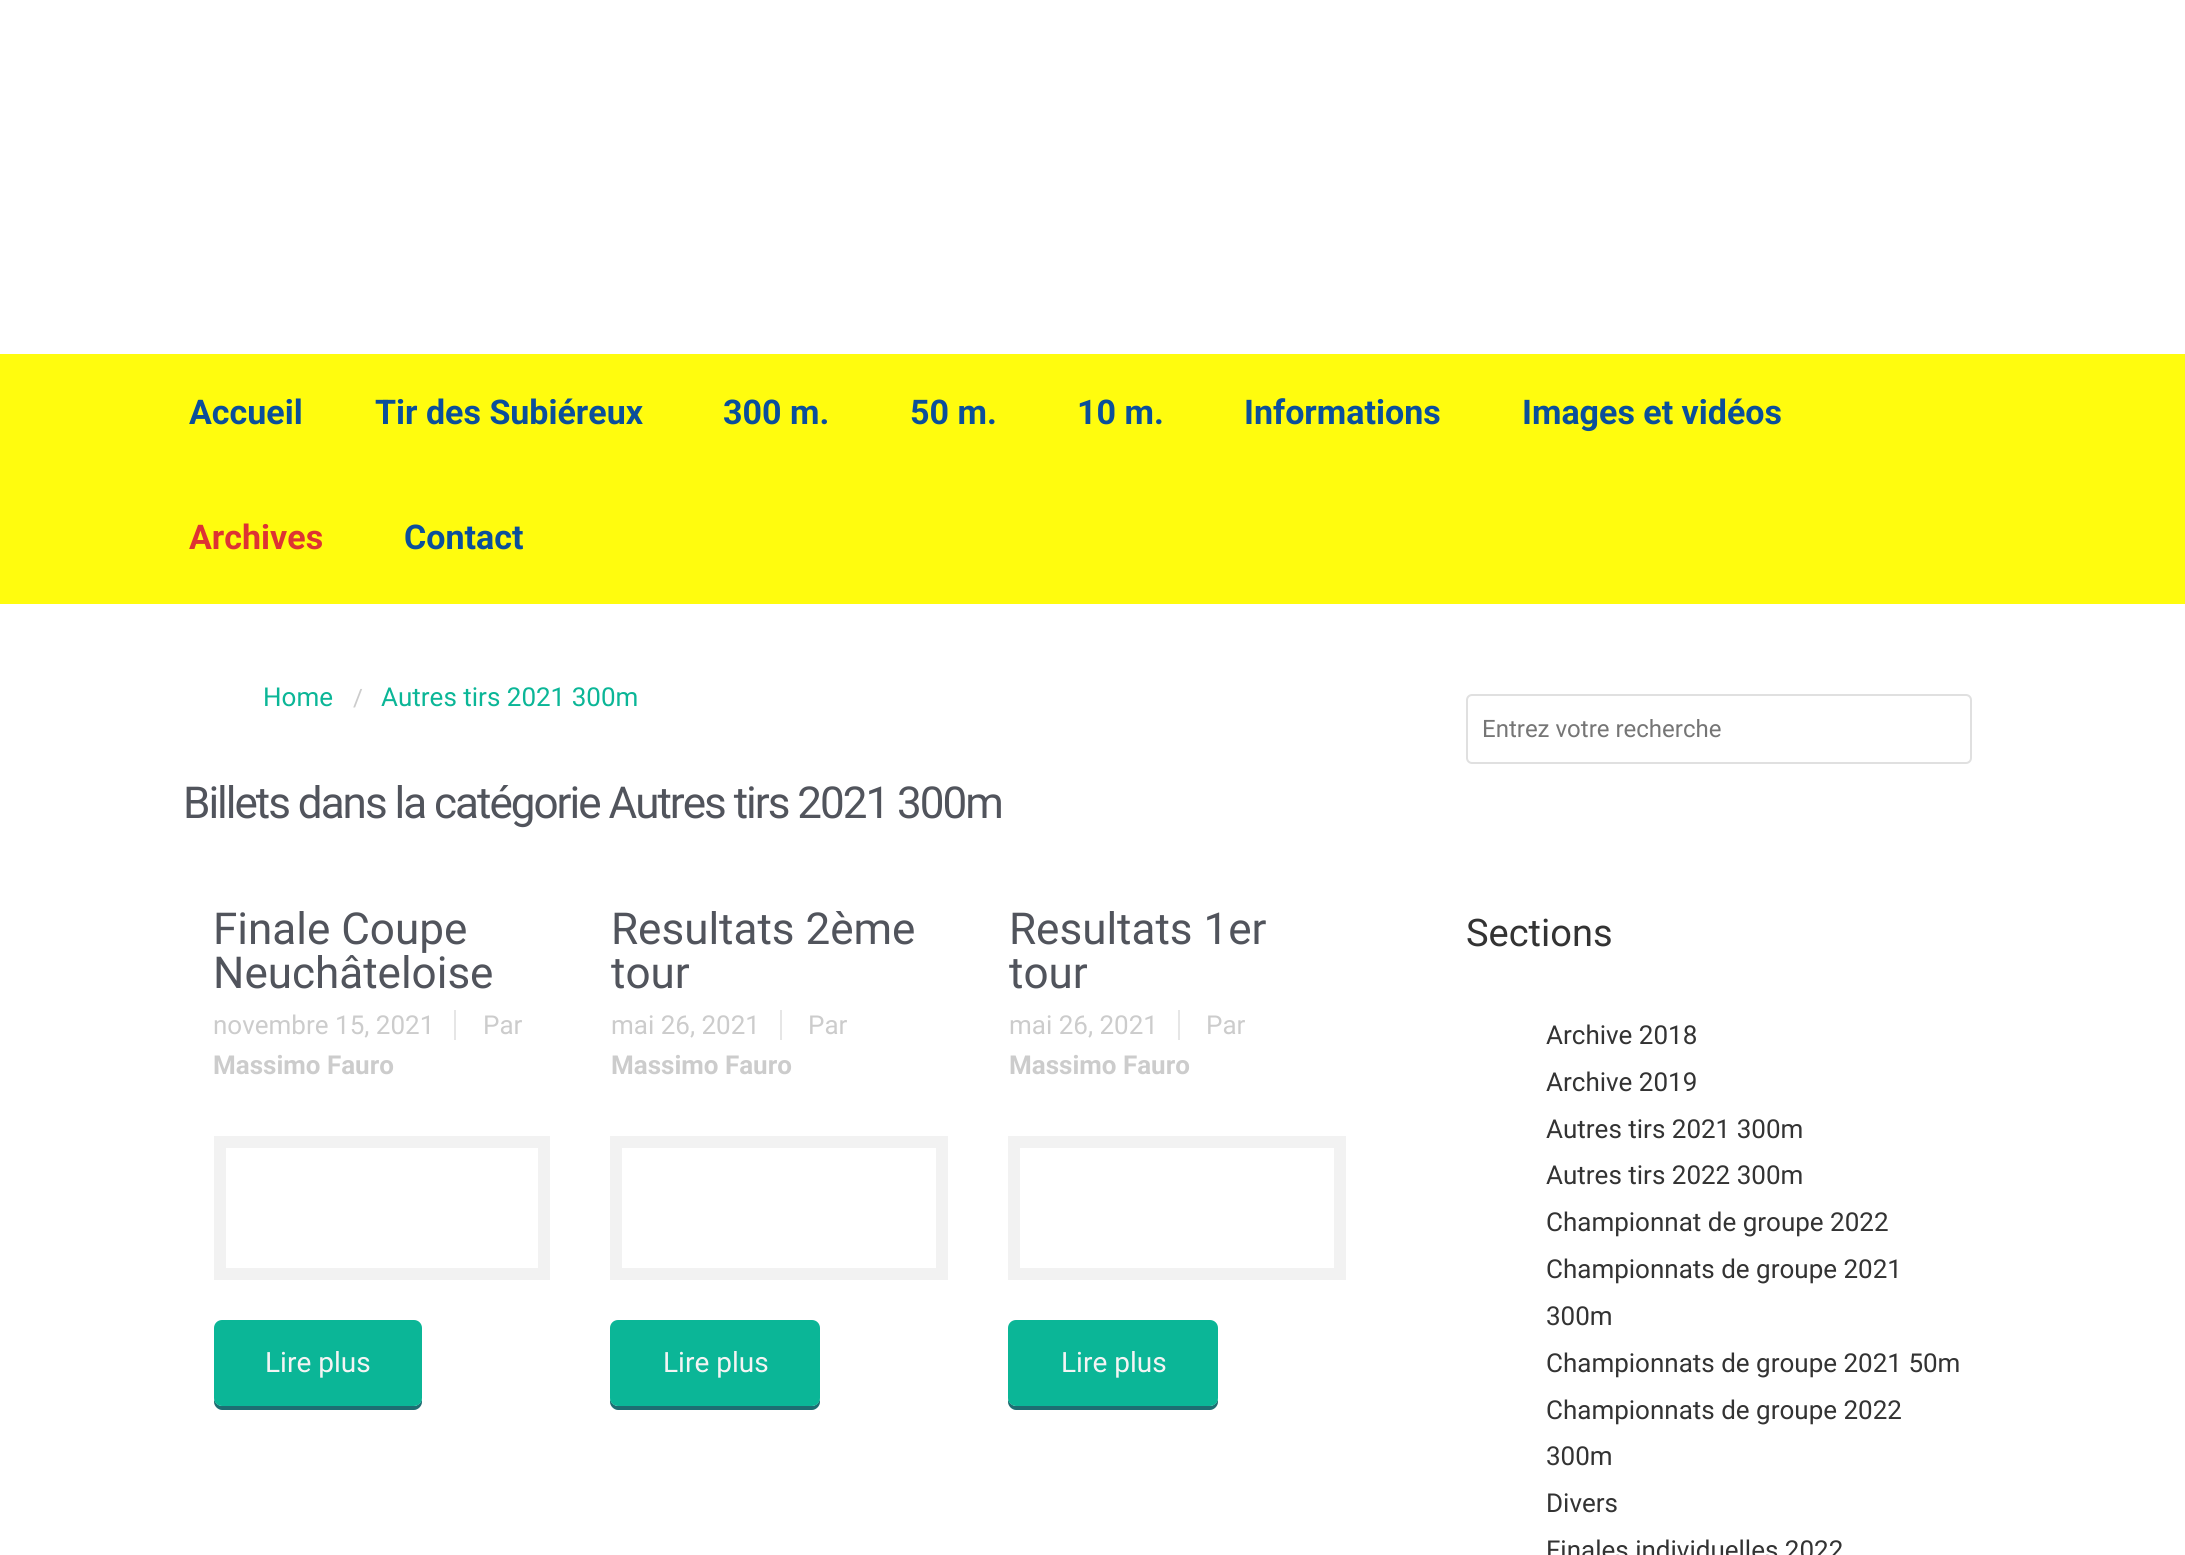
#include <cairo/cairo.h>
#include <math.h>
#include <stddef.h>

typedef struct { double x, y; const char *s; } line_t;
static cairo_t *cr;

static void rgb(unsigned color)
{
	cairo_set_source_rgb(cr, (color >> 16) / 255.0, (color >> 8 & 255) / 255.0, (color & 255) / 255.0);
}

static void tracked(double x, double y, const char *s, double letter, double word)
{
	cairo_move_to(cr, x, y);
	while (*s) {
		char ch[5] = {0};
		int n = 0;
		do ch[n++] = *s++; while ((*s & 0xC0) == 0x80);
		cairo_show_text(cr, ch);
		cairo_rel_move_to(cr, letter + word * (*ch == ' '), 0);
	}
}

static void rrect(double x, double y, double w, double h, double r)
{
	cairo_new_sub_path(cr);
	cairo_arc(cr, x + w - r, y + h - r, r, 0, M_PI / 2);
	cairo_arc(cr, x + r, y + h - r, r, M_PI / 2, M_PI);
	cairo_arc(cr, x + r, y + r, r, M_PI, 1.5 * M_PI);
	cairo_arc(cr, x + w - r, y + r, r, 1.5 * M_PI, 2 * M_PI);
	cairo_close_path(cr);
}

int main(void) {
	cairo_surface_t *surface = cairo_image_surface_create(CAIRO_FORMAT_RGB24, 2185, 1555);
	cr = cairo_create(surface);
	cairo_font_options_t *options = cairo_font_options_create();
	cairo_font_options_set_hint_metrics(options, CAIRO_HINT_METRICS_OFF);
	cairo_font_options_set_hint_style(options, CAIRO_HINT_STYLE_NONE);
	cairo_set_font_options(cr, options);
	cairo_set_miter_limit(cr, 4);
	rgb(0xffffff);
	cairo_paint(cr);
	rgb(0xfffc0e);
	cairo_rectangle(cr, 0, 354, 2185, 250);
	cairo_fill(cr);
	rgb(0xe6e6e6);
	cairo_rectangle(cr, 454, 1010, 2, 30);
	cairo_fill(cr);
	cairo_rectangle(cr, 220, 1142, 324, 132);
	rgb(0xf2f2f2);
	cairo_set_line_width(cr, 12);
	cairo_stroke(cr);
	rgb(0x1d6e72);
	cairo_new_path(cr);
	cairo_move_to(cr, 214, 1398);
	cairo_line_to(cr, 214, 1402);
	cairo_curve_to(cr, 214, 1406, 218, 1410, 222, 1410);
	cairo_line_to(cr, 414, 1410);
	cairo_curve_to(cr, 418, 1410, 422, 1406, 422, 1402);
	cairo_line_to(cr, 422, 1398);
	cairo_curve_to(cr, 422, 1402, 418, 1406, 414, 1406);
	cairo_line_to(cr, 222, 1406);
	cairo_curve_to(cr, 218, 1406, 214, 1402, 214, 1398);
	cairo_close_path(cr);
	cairo_fill(cr);
	rgb(0x0bb697);
	rrect(215, 1321, 206, 84, 7);
	cairo_fill_preserve(cr);
	cairo_set_line_width(cr, 2);
	cairo_stroke(cr);
	rgb(0xe6e6e6);
	cairo_rectangle(cr, 780, 1010, 2, 30);
	cairo_fill(cr);
	cairo_rectangle(cr, 616, 1142, 326, 132);
	rgb(0xf2f2f2);
	cairo_set_line_width(cr, 12);
	cairo_stroke(cr);
	rgb(0x1d6e72);
	cairo_new_path(cr);
	cairo_move_to(cr, 610, 1398);
	cairo_line_to(cr, 610, 1402);
	cairo_curve_to(cr, 610, 1406, 614, 1410, 618, 1410);
	cairo_line_to(cr, 812, 1410);
	cairo_curve_to(cr, 816, 1410, 820, 1406, 820, 1402);
	cairo_line_to(cr, 820, 1398);
	cairo_curve_to(cr, 820, 1402, 816, 1406, 812, 1406);
	cairo_line_to(cr, 618, 1406);
	cairo_curve_to(cr, 614, 1406, 610, 1402, 610, 1398);
	cairo_close_path(cr);
	cairo_fill(cr);
	rgb(0x0bb697);
	rrect(611, 1321, 208, 84, 7);
	cairo_fill_preserve(cr);
	cairo_set_line_width(cr, 2);
	cairo_stroke(cr);
	rgb(0xe6e6e6);
	cairo_rectangle(cr, 1178, 1010, 2, 30);
	cairo_fill(cr);
	cairo_rectangle(cr, 1014, 1142, 326, 132);
	rgb(0xf2f2f2);
	cairo_set_line_width(cr, 12);
	cairo_stroke(cr);
	rgb(0x1d6e72);
	cairo_new_path(cr);
	cairo_move_to(cr, 1008, 1398);
	cairo_line_to(cr, 1008, 1402);
	cairo_curve_to(cr, 1008, 1406, 1012, 1410, 1016, 1410);
	cairo_line_to(cr, 1210, 1410);
	cairo_curve_to(cr, 1214, 1410, 1218, 1406, 1218, 1402);
	cairo_line_to(cr, 1218, 1398);
	cairo_curve_to(cr, 1218, 1402, 1214, 1406, 1210, 1406);
	cairo_line_to(cr, 1016, 1406);
	cairo_curve_to(cr, 1012, 1406, 1008, 1402, 1008, 1398);
	cairo_close_path(cr);
	cairo_fill(cr);
	rgb(0x0bb697);
	rrect(1009, 1321, 208, 84, 7);
	cairo_fill_preserve(cr);
	cairo_set_line_width(cr, 2);
	cairo_stroke(cr);
	rrect(1467, 695, 504, 68, 5);
	rgb(0xe0e0e0);
	cairo_stroke(cr);
	cairo_select_font_face(cr, "Roboto", CAIRO_FONT_SLANT_NORMAL, CAIRO_FONT_WEIGHT_BOLD);
	cairo_set_font_size(cr, 34);
	rgb(0x0b4f9a);
	{
		static const line_t items[] = {
			{189, 424, "Accueil"},
			{375, 424, "Tir des Subiéreux"},
			{723, 424, "300 m."},
			{910, 424, "50 m."},
			{1077, 424, "10 m."},
			{1244, 424, "Informations"},
			{1522, 424, "Images et vidéos"},
		};
		for (size_t i = 0; i < sizeof items / sizeof *items; i++) {
			cairo_move_to(cr, items[i].x, items[i].y);
			cairo_show_text(cr, items[i].s);
		}
	}
	rgb(0xdd3333);
	cairo_move_to(cr, 189, 549);
	cairo_show_text(cr, "Archives");
	rgb(0x0b4f9a);
	cairo_move_to(cr, 404, 549);
	cairo_show_text(cr, "Contact");
	cairo_select_font_face(cr, "Roboto", CAIRO_FONT_SLANT_NORMAL, CAIRO_FONT_WEIGHT_NORMAL);
	cairo_set_font_size(cr, 26);
	rgb(0x0bb697);
	cairo_move_to(cr, 263, 706);
	cairo_show_text(cr, "Home");
	cairo_set_font_size(cr, 24);
	rgb(0xcccccc);
	cairo_move_to(cr, 353, 706);
	cairo_show_text(cr, "/");
	cairo_set_font_size(cr, 26);
	rgb(0x0bb697);
	cairo_move_to(cr, 381, 706);
	cairo_show_text(cr, "Autres tirs 2021 300m");
	cairo_set_font_size(cr, 44);
	rgb(0x51545c);
	tracked(183, 818, "Billets dans la catégorie Autres tirs 2021 300m", -2, 0);
	cairo_move_to(cr, 213, 944);
	cairo_show_text(cr, "Finale Coupe");
	cairo_move_to(cr, 213, 988);
	cairo_show_text(cr, "Neuchâteloise");
	cairo_set_font_size(cr, 26);
	rgb(0xcccccc);
	cairo_move_to(cr, 213, 1034);
	cairo_show_text(cr, "novembre 15, 2021");
	cairo_move_to(cr, 483, 1034);
	cairo_show_text(cr, "Par");
	cairo_select_font_face(cr, "Roboto", CAIRO_FONT_SLANT_NORMAL, CAIRO_FONT_WEIGHT_BOLD);
	cairo_move_to(cr, 213, 1074);
	cairo_show_text(cr, "Massimo Fauro");
	cairo_select_font_face(cr, "Roboto", CAIRO_FONT_SLANT_NORMAL, CAIRO_FONT_WEIGHT_NORMAL);
	cairo_set_font_size(cr, 28);
	rgb(0xf4f4f4);
	cairo_move_to(cr, 265, 1372);
	cairo_show_text(cr, "Lire plus");
	cairo_set_font_size(cr, 44);
	rgb(0x51545c);
	cairo_move_to(cr, 611, 944);
	cairo_show_text(cr, "Resultats 2ème");
	cairo_move_to(cr, 611, 988);
	cairo_show_text(cr, "tour");
	cairo_set_font_size(cr, 26);
	rgb(0xcccccc);
	cairo_move_to(cr, 611, 1034);
	cairo_show_text(cr, "mai 26, 2021");
	cairo_move_to(cr, 808, 1034);
	cairo_show_text(cr, "Par");
	cairo_select_font_face(cr, "Roboto", CAIRO_FONT_SLANT_NORMAL, CAIRO_FONT_WEIGHT_BOLD);
	cairo_move_to(cr, 611, 1074);
	cairo_show_text(cr, "Massimo Fauro");
	cairo_select_font_face(cr, "Roboto", CAIRO_FONT_SLANT_NORMAL, CAIRO_FONT_WEIGHT_NORMAL);
	cairo_set_font_size(cr, 28);
	rgb(0xf4f4f4);
	cairo_move_to(cr, 663, 1372);
	cairo_show_text(cr, "Lire plus");
	cairo_set_font_size(cr, 44);
	rgb(0x51545c);
	cairo_move_to(cr, 1009, 944);
	cairo_show_text(cr, "Resultats 1er");
	cairo_move_to(cr, 1009, 988);
	cairo_show_text(cr, "tour");
	cairo_set_font_size(cr, 26);
	rgb(0xcccccc);
	cairo_move_to(cr, 1009, 1034);
	cairo_show_text(cr, "mai 26, 2021");
	cairo_move_to(cr, 1206, 1034);
	cairo_show_text(cr, "Par");
	cairo_select_font_face(cr, "Roboto", CAIRO_FONT_SLANT_NORMAL, CAIRO_FONT_WEIGHT_BOLD);
	cairo_move_to(cr, 1009, 1074);
	cairo_show_text(cr, "Massimo Fauro");
	cairo_select_font_face(cr, "Roboto", CAIRO_FONT_SLANT_NORMAL, CAIRO_FONT_WEIGHT_NORMAL);
	cairo_set_font_size(cr, 28);
	rgb(0xf4f4f4);
	cairo_move_to(cr, 1061, 1372);
	cairo_show_text(cr, "Lire plus");
	cairo_set_font_size(cr, 24);
	rgb(0x757575);
	cairo_move_to(cr, 1482, 737);
	cairo_show_text(cr, "Entrez votre recherche");
	cairo_set_font_size(cr, 38);
	rgb(0x333333);
	cairo_move_to(cr, 1466, 946);
	cairo_show_text(cr, "Sections");
	cairo_set_font_size(cr, 26);
	{
		static const line_t items[] = {
			{1546, 1044, "Archive 2018"},
			{1546, 1091, "Archive 2019"},
			{1546, 1138, "Autres tirs 2021 300m"},
			{1546, 1184, "Autres tirs 2022 300m"},
			{1546, 1231, "Championnat de groupe 2022"},
			{1546, 1278, "Championnats de groupe 2021"},
			{1546, 1325, "300m"},
			{1546, 1372, "Championnats de groupe 2021 50m"},
			{1546, 1419, "Championnats de groupe 2022"},
			{1546, 1465, "300m"},
			{1546, 1512, "Divers"},
			{1546, 1559, "Finales individuelles 2022"},
		};
		for (size_t i = 0; i < sizeof items / sizeof *items; i++) {
			cairo_move_to(cr, items[i].x, items[i].y);
			cairo_show_text(cr, items[i].s);
		}
	}
	cairo_surface_write_to_png(surface, "page.png");
	cairo_font_options_destroy(options);
	cairo_destroy(cr);
	cairo_surface_destroy(surface);
	return 0;
}
